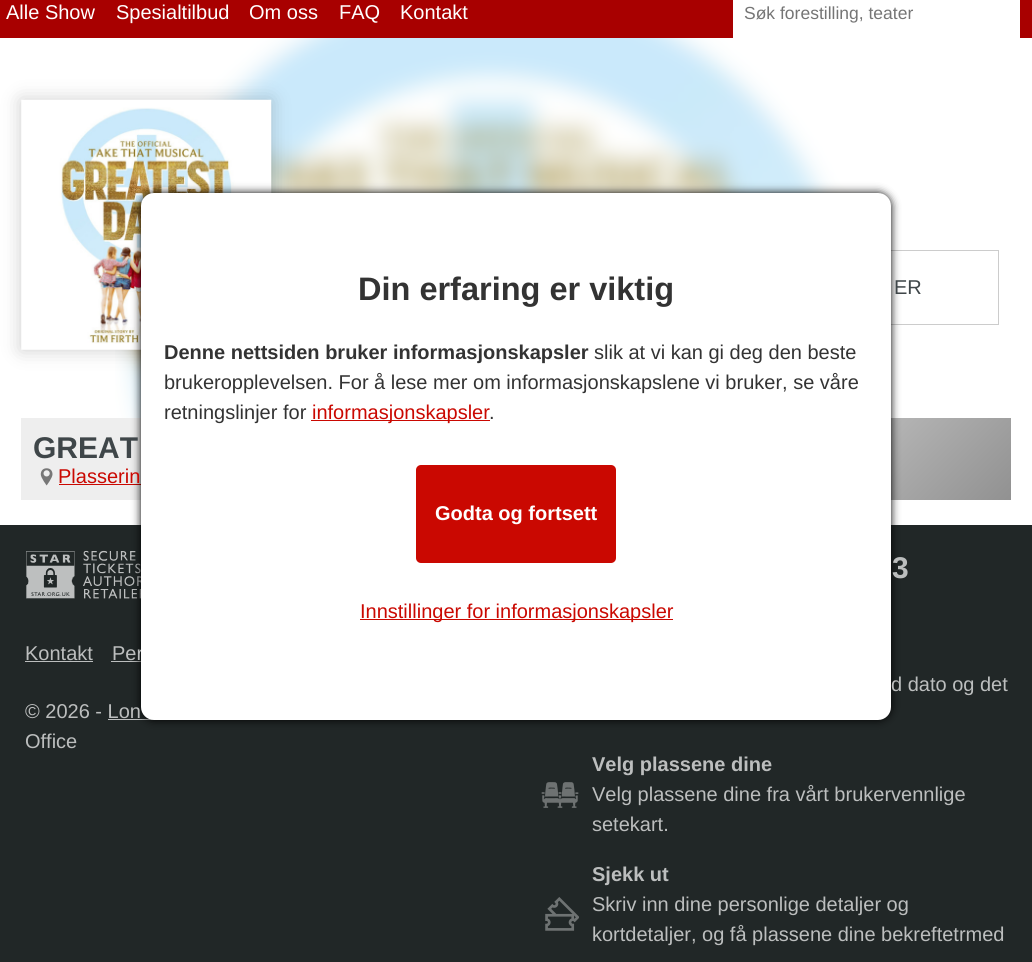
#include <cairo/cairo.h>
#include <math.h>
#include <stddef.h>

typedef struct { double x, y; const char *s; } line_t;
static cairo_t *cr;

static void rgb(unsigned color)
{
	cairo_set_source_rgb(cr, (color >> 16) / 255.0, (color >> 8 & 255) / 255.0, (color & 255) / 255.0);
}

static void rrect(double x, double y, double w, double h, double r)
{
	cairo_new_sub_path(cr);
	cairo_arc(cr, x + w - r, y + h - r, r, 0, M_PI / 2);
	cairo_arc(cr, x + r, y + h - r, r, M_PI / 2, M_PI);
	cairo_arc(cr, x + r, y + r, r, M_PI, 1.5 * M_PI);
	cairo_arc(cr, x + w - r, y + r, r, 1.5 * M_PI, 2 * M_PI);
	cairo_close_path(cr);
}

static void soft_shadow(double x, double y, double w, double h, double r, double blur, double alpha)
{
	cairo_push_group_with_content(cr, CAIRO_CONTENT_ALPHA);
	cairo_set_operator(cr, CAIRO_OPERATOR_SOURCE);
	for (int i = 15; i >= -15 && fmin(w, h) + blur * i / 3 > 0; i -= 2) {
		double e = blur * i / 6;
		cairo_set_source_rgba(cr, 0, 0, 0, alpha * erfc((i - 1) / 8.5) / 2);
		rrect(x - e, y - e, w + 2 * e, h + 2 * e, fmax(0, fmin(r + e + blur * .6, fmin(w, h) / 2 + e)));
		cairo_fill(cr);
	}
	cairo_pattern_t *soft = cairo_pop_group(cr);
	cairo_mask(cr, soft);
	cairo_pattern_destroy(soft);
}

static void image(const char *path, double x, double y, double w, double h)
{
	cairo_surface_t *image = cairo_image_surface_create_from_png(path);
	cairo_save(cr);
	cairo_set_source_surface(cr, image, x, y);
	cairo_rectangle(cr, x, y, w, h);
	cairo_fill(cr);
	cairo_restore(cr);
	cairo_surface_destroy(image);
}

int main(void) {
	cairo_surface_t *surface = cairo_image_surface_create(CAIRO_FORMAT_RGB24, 1032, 962);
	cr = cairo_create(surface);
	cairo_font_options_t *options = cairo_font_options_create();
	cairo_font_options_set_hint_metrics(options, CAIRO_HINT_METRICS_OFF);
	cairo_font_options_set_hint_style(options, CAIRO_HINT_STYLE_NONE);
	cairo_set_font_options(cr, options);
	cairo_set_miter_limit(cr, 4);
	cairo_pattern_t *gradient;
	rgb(0xffffff);
	cairo_paint(cr);
	rgb(0xa80000);
	cairo_rectangle(cr, 0, 0, 1032, 38);
	cairo_fill(cr);
	rgb(0xffffff);
	cairo_rectangle(cr, 733, 0, 287, 38);
	cairo_fill(cr);
	image("img/1.png", 115, 38, 750, 380);
	cairo_rectangle(cr, 661.5, 250.5, 337, 74);
	rgb(0xcccccc);
	cairo_set_line_width(cr, 1);
	cairo_stroke(cr);
	rgb(0x000000);
	soft_shadow(21, 100, 250, 250, 0, 9.5, 0.2);
	image("img/2.png", 21, 99, 251, 251);
	gradient = cairo_pattern_create_linear(248, 191, 784, 727);
	cairo_pattern_add_color_stop_rgba(gradient, 0.51, 0.933, 0.933, 0.933, 1);
	cairo_pattern_add_color_stop_rgba(gradient, 1, 0.569, 0.569, 0.569, 1);
	cairo_set_source(cr, gradient);
	cairo_pattern_destroy(gradient);
	cairo_rectangle(cr, 21, 418, 990, 82);
	cairo_fill(cr);
	rgb(0xca0801);
	cairo_rectangle(cr, 59, 484, 82, 1);
	cairo_fill(cr);
	rgb(0x212727);
	cairo_rectangle(cr, 0, 525, 1032, 437);
	cairo_fill(cr);
	image("img/4.png", 26, 550, 115, 49);
	rgb(0xbcbebe);
	cairo_rectangle(cr, 111, 661, 30, 1);
	cairo_fill(cr);
	cairo_rectangle(cr, 108, 719, 46, 1);
	cairo_fill(cr);
	rgb(0x000000);
	soft_shadow(141, 193, 750, 527, 13, 4.5, 1);
	image("img/3.png", 40, 468, 13, 18);
	rgb(0xbcbebe);
	cairo_rectangle(cr, 25, 661, 68, 1);
	cairo_fill(cr);
	image("img/5.png", 541, 782, 38, 26);
	image("img/6.png", 545, 897, 34, 34);
	cairo_select_font_face(cr, "Liberation Sans", CAIRO_FONT_SLANT_NORMAL, CAIRO_FONT_WEIGHT_NORMAL);
	cairo_set_font_size(cr, 20);
	rgb(0xffffff);
	{
		static const line_t items[] = {
			{6, 19, "Alle Show"},
			{116, 19, "Spesialtilbud"},
			{249, 19, "Om oss"},
			{339, 19, "FAQ"},
			{400, 19, "Kontakt"},
		};
		for (size_t i = 0; i < sizeof items / sizeof *items; i++) {
			cairo_move_to(cr, items[i].x, items[i].y);
			cairo_show_text(cr, items[i].s);
		}
	}
	cairo_set_font_size(cr, 17.5);
	rgb(0x757575);
	cairo_move_to(cr, 744, 19);
	cairo_show_text(cr, "Søk forestilling, teater");
	cairo_set_font_size(cr, 20);
	rgb(0x3f4649);
	cairo_move_to(cr, 894, 294);
	cairo_show_text(cr, "ER");
	cairo_select_font_face(cr, "Liberation Sans", CAIRO_FONT_SLANT_NORMAL, CAIRO_FONT_WEIGHT_BOLD);
	cairo_set_font_size(cr, 30);
	cairo_move_to(cr, 33, 458);
	cairo_show_text(cr, "GREAT");
	cairo_select_font_face(cr, "Liberation Sans", CAIRO_FONT_SLANT_NORMAL, CAIRO_FONT_WEIGHT_NORMAL);
	cairo_set_font_size(cr, 20);
	rgb(0xca0801);
	cairo_move_to(cr, 58, 483);
	cairo_show_text(cr, "Plasserin");
	rgb(0xbcbebe);
	cairo_move_to(cr, 25, 660);
	cairo_show_text(cr, "Kontakt");
	cairo_move_to(cr, 112, 660);
	cairo_show_text(cr, "Per");
	rgb(0xffffff);
	rrect(141, 193, 750, 527, 13);
	cairo_fill(cr);
	rgb(0xca0801);
	rrect(416, 465, 200, 98, 5);
	cairo_fill(cr);
	cairo_select_font_face(cr, "Liberation Sans", CAIRO_FONT_SLANT_NORMAL, CAIRO_FONT_WEIGHT_BOLD);
	rgb(0xffffff);
	cairo_move_to(cr, 435, 520);
	cairo_show_text(cr, "Godta og fortsett");
	rgb(0xca0801);
	cairo_rectangle(cr, 360, 619, 313, 1);
	cairo_fill(cr);
	cairo_select_font_face(cr, "Liberation Sans", CAIRO_FONT_SLANT_NORMAL, CAIRO_FONT_WEIGHT_NORMAL);
	cairo_move_to(cr, 360, 618);
	cairo_show_text(cr, "Innstillinger for informasjonskapsler");
	rgb(0x333333);
	cairo_move_to(cr, 489, 419);
	cairo_show_text(cr, ".");
	rgb(0xca0801);
	cairo_rectangle(cr, 311, 420, 179, 1);
	cairo_fill(cr);
	cairo_move_to(cr, 312, 419);
	cairo_show_text(cr, "informasjonskapsler");
	rgb(0x333333);
	{
		static const line_t items[] = {
			{164, 419, "retningslinjer for"},
			{164, 389, "brukeropplevelsen. For å lese mer om informasjonskapslene vi bruker, se våre"},
			{594, 359, "slik at vi kan gi deg den beste"},
		};
		for (size_t i = 0; i < sizeof items / sizeof *items; i++) {
			cairo_move_to(cr, items[i].x, items[i].y);
			cairo_show_text(cr, items[i].s);
		}
	}
	cairo_select_font_face(cr, "Liberation Sans", CAIRO_FONT_SLANT_NORMAL, CAIRO_FONT_WEIGHT_BOLD);
	cairo_move_to(cr, 164, 359);
	cairo_show_text(cr, "Denne nettsiden bruker informasjonskapsler");
	cairo_set_font_size(cr, 32.5);
	cairo_move_to(cr, 358, 300);
	cairo_show_text(cr, "Din erfaring er viktig");
	cairo_select_font_face(cr, "Liberation Sans", CAIRO_FONT_SLANT_NORMAL, CAIRO_FONT_WEIGHT_NORMAL);
	cairo_set_font_size(cr, 20);
	rgb(0xbcbebe);
	cairo_move_to(cr, 25, 718);
	cairo_show_text(cr, "© 2026 - Lon");
	cairo_move_to(cr, 25, 748);
	cairo_show_text(cr, "Office");
	cairo_select_font_face(cr, "Liberation Sans", CAIRO_FONT_SLANT_NORMAL, CAIRO_FONT_WEIGHT_BOLD);
	cairo_set_font_size(cr, 30);
	cairo_move_to(cr, 892, 578);
	cairo_show_text(cr, "3");
	cairo_select_font_face(cr, "Liberation Sans", CAIRO_FONT_SLANT_NORMAL, CAIRO_FONT_WEIGHT_NORMAL);
	cairo_set_font_size(cr, 20);
	cairo_move_to(cr, 891, 691);
	cairo_show_text(cr, "d dato og det");
	cairo_select_font_face(cr, "Liberation Sans", CAIRO_FONT_SLANT_NORMAL, CAIRO_FONT_WEIGHT_BOLD);
	cairo_move_to(cr, 592, 771);
	cairo_show_text(cr, "Velg plassene dine");
	cairo_select_font_face(cr, "Liberation Sans", CAIRO_FONT_SLANT_NORMAL, CAIRO_FONT_WEIGHT_NORMAL);
	cairo_move_to(cr, 592, 801);
	cairo_show_text(cr, "Velg plassene dine fra vårt brukervennlige");
	cairo_move_to(cr, 592, 831);
	cairo_show_text(cr, "setekart.");
	cairo_select_font_face(cr, "Liberation Sans", CAIRO_FONT_SLANT_NORMAL, CAIRO_FONT_WEIGHT_BOLD);
	cairo_move_to(cr, 592, 881);
	cairo_show_text(cr, "Sjekk ut");
	cairo_select_font_face(cr, "Liberation Sans", CAIRO_FONT_SLANT_NORMAL, CAIRO_FONT_WEIGHT_NORMAL);
	cairo_move_to(cr, 592, 911);
	cairo_show_text(cr, "Skriv inn dine personlige detaljer og");
	cairo_move_to(cr, 592, 941);
	cairo_show_text(cr, "kortdetaljer, og få plassene dine bekreftetrmed");
	cairo_surface_write_to_png(surface, "page.png");
	cairo_font_options_destroy(options);
	cairo_destroy(cr);
	cairo_surface_destroy(surface);
	return 0;
}
